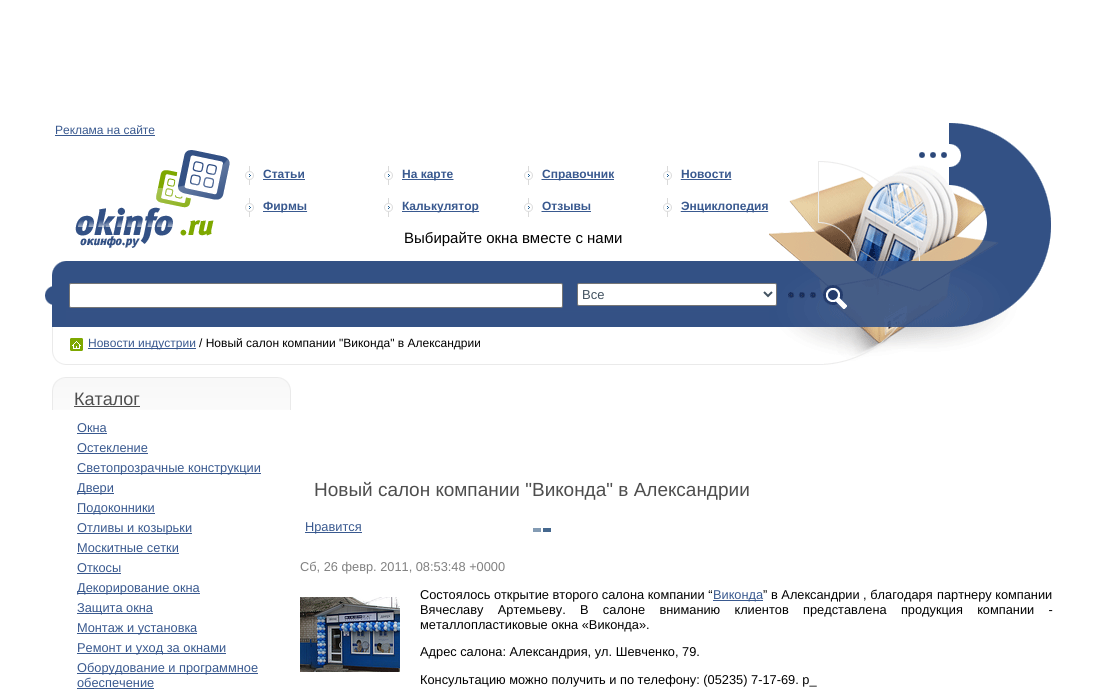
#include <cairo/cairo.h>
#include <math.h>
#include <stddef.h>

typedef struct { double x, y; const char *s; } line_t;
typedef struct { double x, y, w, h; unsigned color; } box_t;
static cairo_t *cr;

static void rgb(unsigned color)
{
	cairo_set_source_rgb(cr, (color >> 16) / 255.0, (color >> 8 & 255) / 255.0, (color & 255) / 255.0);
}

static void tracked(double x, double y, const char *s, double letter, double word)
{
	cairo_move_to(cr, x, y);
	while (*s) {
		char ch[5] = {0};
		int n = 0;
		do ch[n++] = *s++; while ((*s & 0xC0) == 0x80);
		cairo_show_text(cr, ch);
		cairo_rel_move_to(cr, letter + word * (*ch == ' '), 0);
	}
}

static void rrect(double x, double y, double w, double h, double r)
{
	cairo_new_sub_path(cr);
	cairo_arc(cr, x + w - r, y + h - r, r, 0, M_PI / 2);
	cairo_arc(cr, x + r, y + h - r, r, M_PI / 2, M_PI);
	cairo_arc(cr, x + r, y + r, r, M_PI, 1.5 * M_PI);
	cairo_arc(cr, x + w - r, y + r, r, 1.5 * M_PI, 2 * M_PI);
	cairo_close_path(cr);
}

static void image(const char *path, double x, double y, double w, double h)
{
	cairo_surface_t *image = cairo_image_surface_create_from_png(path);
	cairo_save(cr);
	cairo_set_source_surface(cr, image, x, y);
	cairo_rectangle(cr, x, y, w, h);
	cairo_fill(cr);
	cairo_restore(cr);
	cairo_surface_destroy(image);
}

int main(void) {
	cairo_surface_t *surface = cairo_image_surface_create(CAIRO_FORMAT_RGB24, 1104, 692);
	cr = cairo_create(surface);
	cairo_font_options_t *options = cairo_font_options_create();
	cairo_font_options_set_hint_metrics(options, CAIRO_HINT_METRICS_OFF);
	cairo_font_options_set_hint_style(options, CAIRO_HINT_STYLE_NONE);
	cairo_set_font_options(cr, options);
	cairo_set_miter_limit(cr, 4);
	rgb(0xffffff);
	cairo_paint(cr);
	image("img/1.png", 66, 261, 703, 104);
	image("img/2.png", 769, 123, 283, 242);
	image("img/3.png", 45, 261, 21, 104);
	rgb(0x39598f);
	cairo_rectangle(cr, 55, 135, 100, 1);
	cairo_fill(cr);
	image("img/4.png", 75, 150, 155, 98);
	image("img/5.png", 245, 166, 9, 19);
	cairo_rectangle(cr, 263, 179, 42, 1);
	cairo_fill(cr);
	image("img/6.png", 245, 198, 63, 19);
	cairo_rectangle(cr, 280, 211, 4, 1);
	cairo_fill(cr);
	image("img/7.png", 384, 166, 70, 19);
	cairo_rectangle(cr, 402, 179, 35, 1);
	cairo_fill(cr);
	image("img/8.png", 384, 198, 96, 19);
	cairo_rectangle(cr, 402, 211, 77, 1);
	cairo_fill(cr);
	image("img/9.png", 524, 166, 18, 19);
	cairo_rectangle(cr, 542, 179, 72, 1);
	cairo_fill(cr);
	image("img/9.png", 524, 198, 18, 19);
	cairo_rectangle(cr, 542, 211, 49, 1);
	cairo_fill(cr);
	image("img/10.png", 663, 166, 69, 19);
	image("img/11.png", 663, 198, 106, 19);
	cairo_rectangle(cr, 701, 211, 54, 1);
	cairo_fill(cr);
	rgb(0xffffff);
	rrect(69.5, 283.5, 493, 24, 1.5);
	cairo_fill_preserve(cr);
	rgb(0x767676);
	cairo_set_line_width(cr, 1);
	cairo_stroke(cr);
	rgb(0xffffff);
	rrect(577.5, 283.5, 199, 22, 1.5);
	cairo_fill_preserve(cr);
	rgb(0x767676);
	cairo_stroke(cr);
	cairo_new_path(cr);
	cairo_move_to(cr, 764, 292);
	cairo_line_to(cr, 768, 296);
	cairo_line_to(cr, 772, 292);
	rgb(0x425260);
	cairo_set_line_width(cr, 2);
	cairo_stroke(cr);
	image("img/12.png", 70, 338, 13, 13);
	rgb(0x39598f);
	cairo_rectangle(cr, 88, 348, 108, 1);
	cairo_fill(cr);
	image("img/13.png", 52, 377, 239, 33);
	{
		static const box_t items[] = {
			{74, 406, 66, 1, 0x4e4e4e},
			{77, 433, 30, 1, 0x39598f},
			{77, 453, 71, 1, 0x39598f},
			{77, 473, 184, 1, 0x39598f},
			{77, 493, 37, 1, 0x39598f},
			{77, 513, 78, 1, 0x39598f},
			{77, 533, 115, 1, 0x39598f},
			{77, 553, 102, 1, 0x39598f},
			{77, 573, 44, 1, 0x39598f},
			{77, 593, 123, 1, 0x39598f},
			{77, 613, 76, 1, 0x39598f},
			{77, 633, 120, 1, 0x39598f},
			{77, 653, 149, 1, 0x39598f},
			{77, 673, 181, 1, 0x39598f},
			{77, 688, 77, 1, 0x39598f},
			{305, 532, 57, 1, 0x39598f},
		};
		for (size_t i = 0; i < sizeof items / sizeof *items; i++) {
			rgb(items[i].color);
			cairo_rectangle(cr, items[i].x, items[i].y, items[i].w, items[i].h);
			cairo_fill(cr);
		}
	}
	image("img/14.png", 533, 528, 18, 4);
	image("img/15.png", 300, 597, 100, 75);
	cairo_rectangle(cr, 713, 600, 50, 1);
	cairo_fill(cr);
	cairo_select_font_face(cr, "Liberation Sans", CAIRO_FONT_SLANT_NORMAL, CAIRO_FONT_WEIGHT_NORMAL);
	cairo_set_font_size(cr, 12);
	cairo_move_to(cr, 55, 134);
	cairo_show_text(cr, "Реклама на сайте");
	cairo_select_font_face(cr, "Liberation Sans", CAIRO_FONT_SLANT_NORMAL, CAIRO_FONT_WEIGHT_BOLD);
	{
		static const line_t items[] = {
			{263, 178, "Статьи"},
			{263, 210, "Фирмы"},
			{402, 178, "На карте"},
			{402, 210, "Калькулятор"},
			{542, 178, "Справочник"},
			{542, 210, "Отзывы"},
			{681, 178, "Новости"},
			{681, 210, "Энциклопедия"},
		};
		for (size_t i = 0; i < sizeof items / sizeof *items; i++) {
			cairo_move_to(cr, items[i].x, items[i].y);
			cairo_show_text(cr, items[i].s);
		}
	}
	cairo_select_font_face(cr, "Liberation Sans", CAIRO_FONT_SLANT_NORMAL, CAIRO_FONT_WEIGHT_NORMAL);
	cairo_set_font_size(cr, 15);
	rgb(0x000000);
	cairo_move_to(cr, 404, 243);
	cairo_show_text(cr, "Выбирайте окна вместе с нами");
	cairo_set_font_size(cr, 13);
	rgb(0x425260);
	cairo_move_to(cr, 582, 299);
	cairo_show_text(cr, "Все");
	cairo_set_font_size(cr, 12);
	rgb(0x39598f);
	cairo_move_to(cr, 88, 347);
	cairo_show_text(cr, "Новости индустрии");
	rgb(0x000000);
	cairo_move_to(cr, 199, 347);
	cairo_show_text(cr, "/ Новый салон компании \"Виконда\" в Александрии");
	cairo_set_font_size(cr, 18);
	rgb(0x4e4e4e);
	cairo_move_to(cr, 74, 405);
	cairo_show_text(cr, "Каталог");
	cairo_set_font_size(cr, 12.8);
	rgb(0x39598f);
	{
		static const line_t items[] = {
			{77, 432, "Окна"},
			{77, 452, "Остекление"},
			{77, 472, "Светопрозрачные конструкции"},
			{77, 492, "Двери"},
			{77, 512, "Подоконники"},
			{77, 532, "Отливы и козырьки"},
			{77, 552, "Москитные сетки"},
			{77, 572, "Откосы"},
			{77, 592, "Декорирование окна"},
			{77, 612, "Защита окна"},
			{77, 632, "Монтаж и установка"},
			{77, 652, "Ремонт и уход за окнами"},
			{77, 672, "Оборудование и программное"},
			{77, 687, "обеспечение"},
		};
		for (size_t i = 0; i < sizeof items / sizeof *items; i++) {
			cairo_move_to(cr, items[i].x, items[i].y);
			cairo_show_text(cr, items[i].s);
		}
	}
	cairo_set_font_size(cr, 19);
	rgb(0x4e4e4e);
	cairo_move_to(cr, 314, 496);
	cairo_show_text(cr, "Новый салон компании \"Виконда\" в Александрии");
	cairo_set_font_size(cr, 12.8);
	rgb(0x39598f);
	cairo_move_to(cr, 305, 531);
	cairo_show_text(cr, "Нравится");
	rgb(0x808080);
	cairo_move_to(cr, 300, 571);
	cairo_show_text(cr, "Сб, 26 февр. 2011, 08:53:48 +0000");
	rgb(0x000000);
	cairo_move_to(cr, 420, 599);
	cairo_show_text(cr, "Состоялось открытие второго салона компании “");
	rgb(0x39598f);
	cairo_move_to(cr, 713, 599);
	cairo_show_text(cr, "Виконда");
	rgb(0x000000);
	{
		static const line_t items[] = {
			{763, 599, "”"},
			{771, 599, "в Александрии , благодаря"},
			{937, 599, "партнеру компании"},
		};
		for (size_t i = 0; i < sizeof items / sizeof *items; i++) {
			cairo_move_to(cr, items[i].x, items[i].y);
			cairo_show_text(cr, items[i].s);
		}
	}
	tracked(420, 614, "Вячеславу Артемьеву. В салоне вниманию клиентов представлена продукция компании -", 0, 10.75);
	{
		static const line_t items[] = {
			{420, 629, "металлопластиковые окна «Виконда»."},
			{420, 656, "Адрес салона: Александрия, ул. Шевченко, 79."},
			{420, 684, "Консультацию можно получить и по телефону: (05235) 7-17-69. p_"},
		};
		for (size_t i = 0; i < sizeof items / sizeof *items; i++) {
			cairo_move_to(cr, items[i].x, items[i].y);
			cairo_show_text(cr, items[i].s);
		}
	}
	cairo_surface_write_to_png(surface, "page.png");
	cairo_font_options_destroy(options);
	cairo_destroy(cr);
	cairo_surface_destroy(surface);
	return 0;
}
